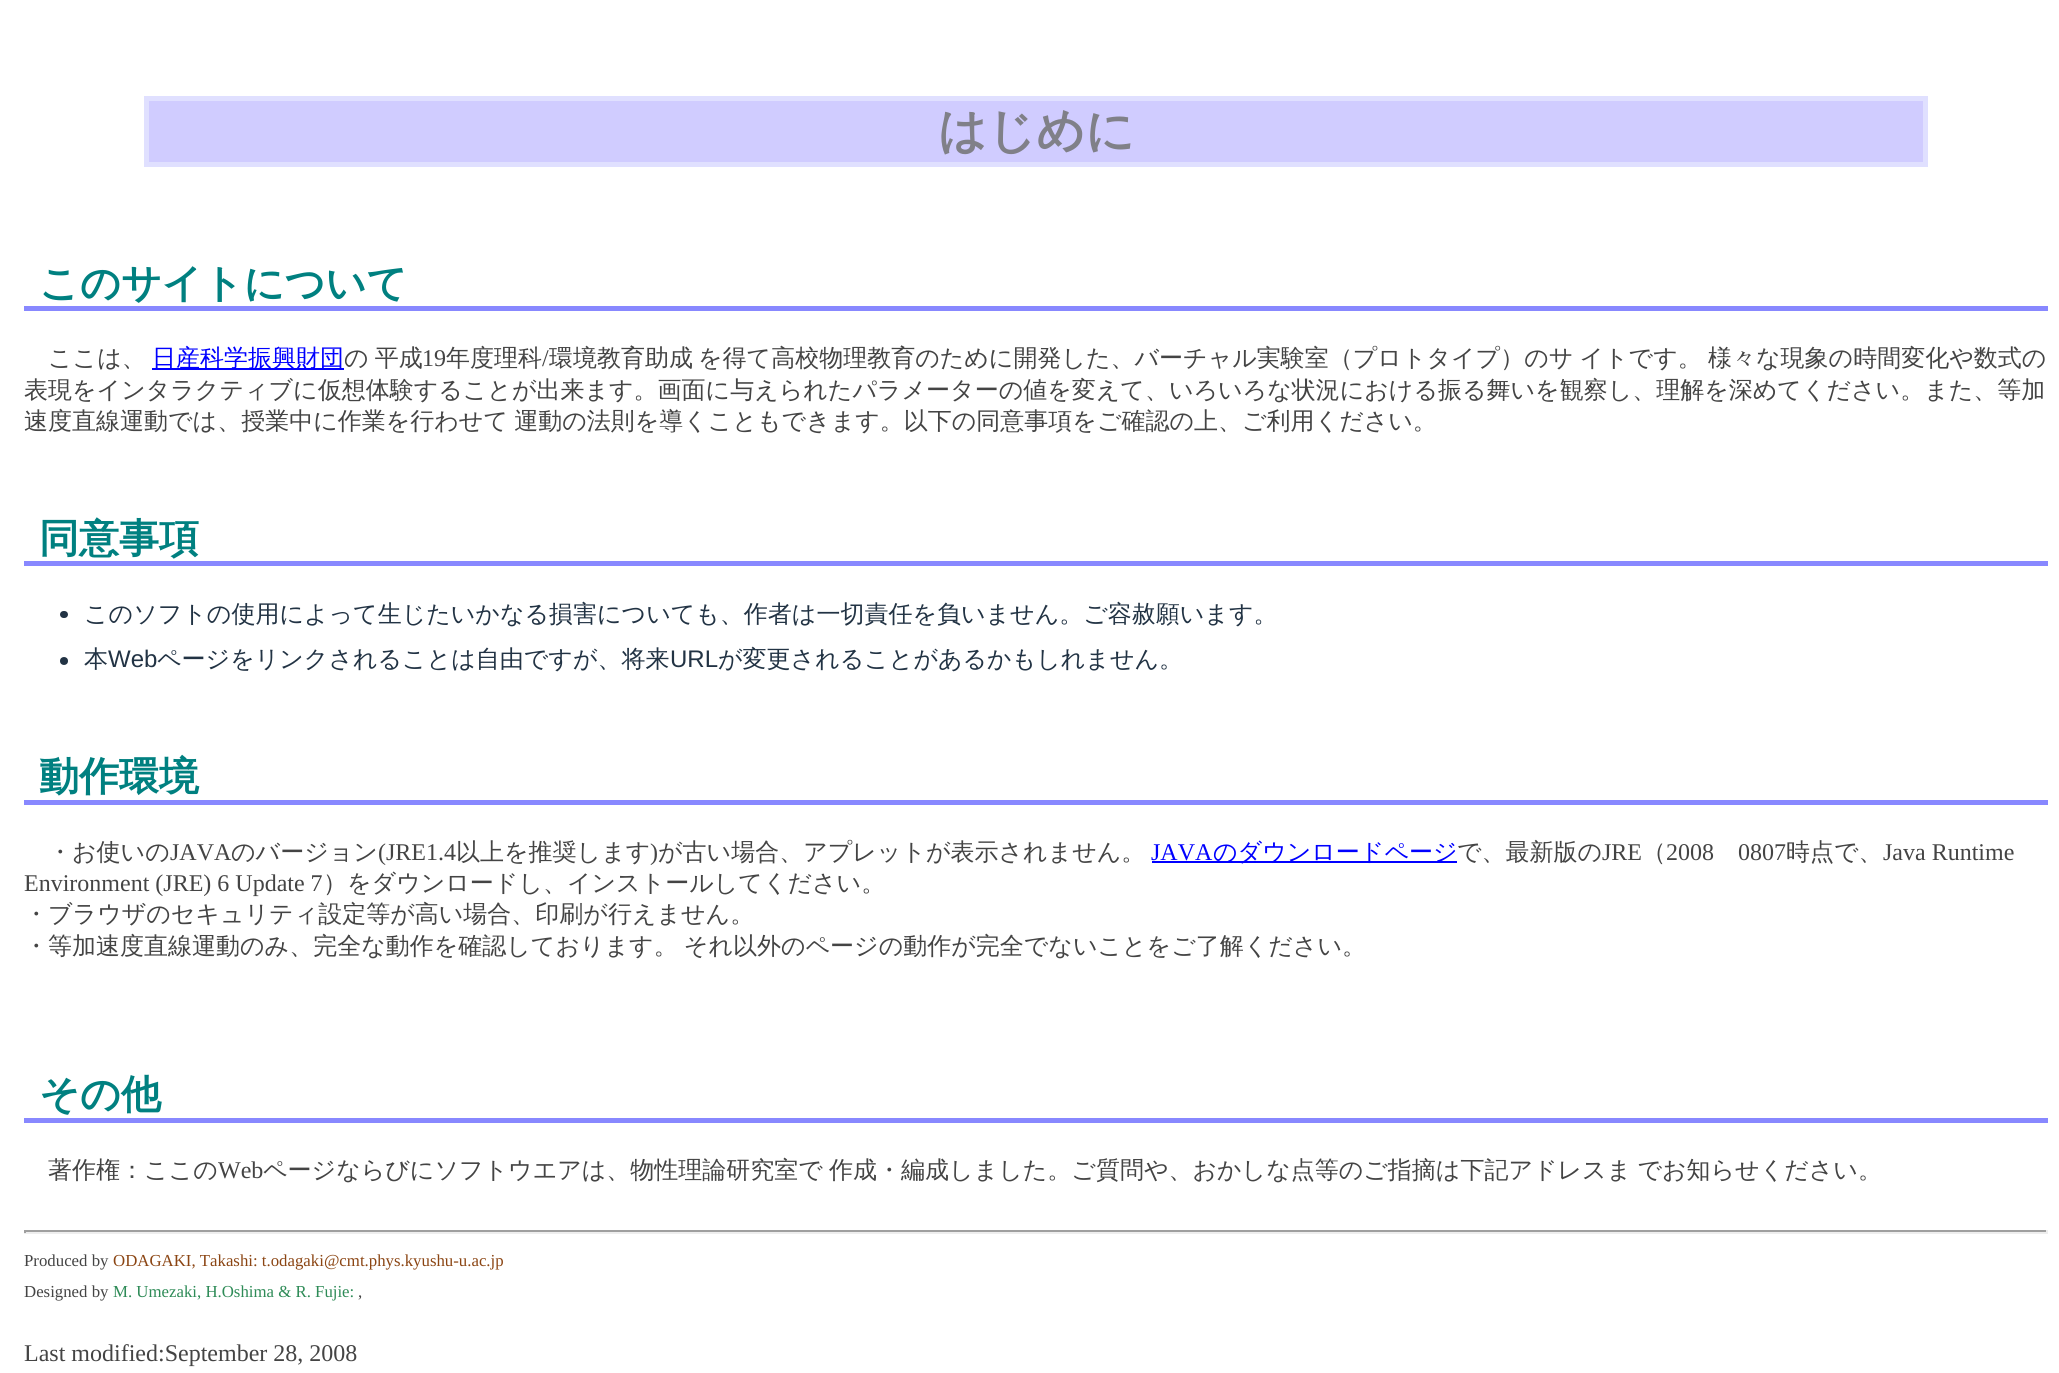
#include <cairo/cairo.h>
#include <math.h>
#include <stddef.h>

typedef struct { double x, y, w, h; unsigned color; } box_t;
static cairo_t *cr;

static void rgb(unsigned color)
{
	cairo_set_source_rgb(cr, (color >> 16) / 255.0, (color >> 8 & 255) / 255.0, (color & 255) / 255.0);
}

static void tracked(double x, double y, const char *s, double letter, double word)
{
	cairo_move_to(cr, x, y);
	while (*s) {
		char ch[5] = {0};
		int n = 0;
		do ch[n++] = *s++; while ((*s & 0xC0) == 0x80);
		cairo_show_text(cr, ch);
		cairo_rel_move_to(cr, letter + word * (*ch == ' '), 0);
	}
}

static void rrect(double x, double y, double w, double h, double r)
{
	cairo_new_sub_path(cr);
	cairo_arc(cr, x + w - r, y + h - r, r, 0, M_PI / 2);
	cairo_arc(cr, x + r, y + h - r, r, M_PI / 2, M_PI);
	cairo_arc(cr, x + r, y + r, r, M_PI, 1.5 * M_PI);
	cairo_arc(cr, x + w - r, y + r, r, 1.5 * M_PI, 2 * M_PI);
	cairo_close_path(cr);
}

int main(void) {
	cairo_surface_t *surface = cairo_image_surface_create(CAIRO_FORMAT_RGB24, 2059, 1373);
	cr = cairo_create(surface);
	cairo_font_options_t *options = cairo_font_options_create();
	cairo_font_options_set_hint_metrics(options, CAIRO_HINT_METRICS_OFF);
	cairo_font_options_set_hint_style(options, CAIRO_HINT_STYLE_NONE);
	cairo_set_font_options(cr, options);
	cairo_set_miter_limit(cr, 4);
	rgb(0xffffff);
	cairo_paint(cr);
	rgb(0xd0ccff);
	cairo_rectangle(cr, 146.5, 98.5, 1779, 66);
	cairo_fill_preserve(cr);
	rgb(0xe0e0ff);
	cairo_set_line_width(cr, 5);
	cairo_stroke(cr);
	{
		static const box_t items[] = {
			{24, 306, 2024, 5, 0x8888ff},
			{152, 368, 192, 2, 0x0000ff},
			{24, 561, 2024, 5, 0x8888ff},
		};
		for (size_t i = 0; i < sizeof items / sizeof *items; i++) {
			rgb(items[i].color);
			cairo_rectangle(cr, items[i].x, items[i].y, items[i].w, items[i].h);
			cairo_fill(cr);
		}
	}
	rgb(0x223344);
	rrect(60, 611, 8, 7, 3.5);
	cairo_fill(cr);
	cairo_arc(cr, 64, 661, 4, 0, 2 * M_PI);
	cairo_fill(cr);
	{
		static const box_t items[] = {
			{24, 800, 2024, 5, 0x8888ff},
			{1152, 861, 305, 2, 0x0000ff},
			{24, 1118, 2024, 5, 0x8888ff},
			{24, 1230, 2024, 2, 0x9f9f9f},
			{2046, 1230, 2, 3, 0xeeeeee},
			{24, 1232, 2024, 2, 0xeeeeee},
			{24, 1230, 2, 3, 0x9f9f9f},
		};
		for (size_t i = 0; i < sizeof items / sizeof *items; i++) {
			rgb(items[i].color);
			cairo_rectangle(cr, items[i].x, items[i].y, items[i].w, items[i].h);
			cairo_fill(cr);
		}
	}
	cairo_select_font_face(cr, "WenQuanYi Zen Hei", CAIRO_FONT_SLANT_NORMAL, CAIRO_FONT_WEIGHT_BOLD);
	cairo_set_font_size(cr, 48);
	rgb(0x808088);
	cairo_move_to(cr, 938, 147);
	cairo_show_text(cr, "はじめに");
	cairo_set_font_size(cr, 40);
	rgb(0x008080);
	cairo_move_to(cr, 39, 297);
	cairo_show_text(cr, "このサイトについて");
	cairo_select_font_face(cr, "WenQuanYi Zen Hei Medium", CAIRO_FONT_SLANT_NORMAL, CAIRO_FONT_WEIGHT_NORMAL);
	cairo_set_font_size(cr, 24);
	rgb(0x444444);
	cairo_move_to(cr, 48, 366);
	cairo_show_text(cr, "ここは、");
	rgb(0x0000ff);
	cairo_move_to(cr, 152, 366);
	cairo_show_text(cr, "日産科学振興財団");
	rgb(0x444444);
	tracked(344, 366, "の 平成", 0, -1);
	cairo_select_font_face(cr, "Liberation Serif", CAIRO_FONT_SLANT_NORMAL, CAIRO_FONT_WEIGHT_NORMAL);
	cairo_move_to(cr, 422, 366);
	cairo_show_text(cr, "19");
	cairo_select_font_face(cr, "WenQuanYi Zen Hei Medium", CAIRO_FONT_SLANT_NORMAL, CAIRO_FONT_WEIGHT_NORMAL);
	cairo_move_to(cr, 446, 366);
	cairo_show_text(cr, "年度理科");
	cairo_select_font_face(cr, "Liberation Serif", CAIRO_FONT_SLANT_NORMAL, CAIRO_FONT_WEIGHT_NORMAL);
	cairo_move_to(cr, 542, 366);
	cairo_show_text(cr, "/");
	cairo_select_font_face(cr, "WenQuanYi Zen Hei Medium", CAIRO_FONT_SLANT_NORMAL, CAIRO_FONT_WEIGHT_NORMAL);
	cairo_move_to(cr, 549, 366);
	cairo_show_text(cr, "環境教育助成");
	tracked(698, 366, "を得て高校物理教育のために開発した、バーチャル実験室（プロトタイプ）のサ イトです。", 0, -1);
	cairo_move_to(cr, 1708, 366);
	cairo_show_text(cr, "様々な現象の時間変化や数式の");
	cairo_move_to(cr, 24, 398);
	cairo_show_text(cr, "表現をインタラクティブに仮想体験することが出来ます。画面に与えられたパラメーターの値を変えて、いろいろな状況における振る舞いを観察し、理解を深めてください。また、等加");
	tracked(24, 429, "速度直線運動では、授業中に作業を行わせて 運動の法則を導くこともできます。以下の同意事項をご確認の上、ご利用ください。", 0, -1);
	cairo_select_font_face(cr, "WenQuanYi Zen Hei", CAIRO_FONT_SLANT_NORMAL, CAIRO_FONT_WEIGHT_BOLD);
	cairo_set_font_size(cr, 40);
	rgb(0x008080);
	cairo_move_to(cr, 39, 552);
	cairo_show_text(cr, "同意事項");
	cairo_select_font_face(cr, "WenQuanYi Zen Hei Medium", CAIRO_FONT_SLANT_NORMAL, CAIRO_FONT_WEIGHT_NORMAL);
	cairo_set_font_size(cr, 24);
	rgb(0x223344);
	cairo_move_to(cr, 84, 622);
	cairo_show_text(cr, "このソフトの使用によって生じたいかなる損害についても、作者は一切責任を負いません。ご容赦願います。");
	cairo_move_to(cr, 84, 667);
	cairo_show_text(cr, "本");
	cairo_select_font_face(cr, "Liberation Sans", CAIRO_FONT_SLANT_NORMAL, CAIRO_FONT_WEIGHT_NORMAL);
	cairo_move_to(cr, 108, 667);
	cairo_show_text(cr, "Web");
	cairo_select_font_face(cr, "WenQuanYi Zen Hei Medium", CAIRO_FONT_SLANT_NORMAL, CAIRO_FONT_WEIGHT_NORMAL);
	cairo_move_to(cr, 157, 667);
	cairo_show_text(cr, "ページをリンクされることは自由ですが、将来");
	cairo_select_font_face(cr, "Liberation Sans", CAIRO_FONT_SLANT_NORMAL, CAIRO_FONT_WEIGHT_NORMAL);
	cairo_move_to(cr, 670, 667);
	cairo_show_text(cr, "URL");
	cairo_select_font_face(cr, "WenQuanYi Zen Hei Medium", CAIRO_FONT_SLANT_NORMAL, CAIRO_FONT_WEIGHT_NORMAL);
	cairo_move_to(cr, 718, 667);
	cairo_show_text(cr, "が変更されることがあるかもしれません。");
	cairo_select_font_face(cr, "WenQuanYi Zen Hei", CAIRO_FONT_SLANT_NORMAL, CAIRO_FONT_WEIGHT_BOLD);
	cairo_set_font_size(cr, 40);
	rgb(0x008080);
	cairo_move_to(cr, 39, 790);
	cairo_show_text(cr, "動作環境");
	cairo_select_font_face(cr, "WenQuanYi Zen Hei Medium", CAIRO_FONT_SLANT_NORMAL, CAIRO_FONT_WEIGHT_NORMAL);
	cairo_set_font_size(cr, 24);
	rgb(0x444444);
	cairo_move_to(cr, 48, 860);
	cairo_show_text(cr, "・お使いの");
	cairo_select_font_face(cr, "Liberation Serif", CAIRO_FONT_SLANT_NORMAL, CAIRO_FONT_WEIGHT_NORMAL);
	cairo_move_to(cr, 170, 860);
	cairo_show_text(cr, "JAVA");
	cairo_select_font_face(cr, "WenQuanYi Zen Hei Medium", CAIRO_FONT_SLANT_NORMAL, CAIRO_FONT_WEIGHT_NORMAL);
	cairo_move_to(cr, 231, 860);
	cairo_show_text(cr, "のバージョン");
	cairo_select_font_face(cr, "Liberation Serif", CAIRO_FONT_SLANT_NORMAL, CAIRO_FONT_WEIGHT_NORMAL);
	cairo_move_to(cr, 378, 860);
	cairo_show_text(cr, "(JRE1.4");
	cairo_select_font_face(cr, "WenQuanYi Zen Hei Medium", CAIRO_FONT_SLANT_NORMAL, CAIRO_FONT_WEIGHT_NORMAL);
	cairo_move_to(cr, 456, 860);
	cairo_show_text(cr, "以上を推奨します");
	cairo_select_font_face(cr, "Liberation Serif", CAIRO_FONT_SLANT_NORMAL, CAIRO_FONT_WEIGHT_NORMAL);
	cairo_move_to(cr, 650, 860);
	cairo_show_text(cr, ")");
	cairo_select_font_face(cr, "WenQuanYi Zen Hei Medium", CAIRO_FONT_SLANT_NORMAL, CAIRO_FONT_WEIGHT_NORMAL);
	cairo_move_to(cr, 658, 860);
	cairo_show_text(cr, "が古い場合、アプレットが表示されません。");
	cairo_select_font_face(cr, "Liberation Serif", CAIRO_FONT_SLANT_NORMAL, CAIRO_FONT_WEIGHT_NORMAL);
	rgb(0x0000ff);
	cairo_move_to(cr, 1151, 860);
	cairo_show_text(cr, "JAVA");
	cairo_select_font_face(cr, "WenQuanYi Zen Hei Medium", CAIRO_FONT_SLANT_NORMAL, CAIRO_FONT_WEIGHT_NORMAL);
	cairo_move_to(cr, 1213, 860);
	cairo_show_text(cr, "のダウンロードページ");
	rgb(0x444444);
	cairo_move_to(cr, 1457, 860);
	cairo_show_text(cr, "で、最新版の");
	cairo_select_font_face(cr, "Liberation Serif", CAIRO_FONT_SLANT_NORMAL, CAIRO_FONT_WEIGHT_NORMAL);
	cairo_move_to(cr, 1602, 860);
	cairo_show_text(cr, "JRE");
	cairo_select_font_face(cr, "WenQuanYi Zen Hei Medium", CAIRO_FONT_SLANT_NORMAL, CAIRO_FONT_WEIGHT_NORMAL);
	cairo_move_to(cr, 1642, 860);
	cairo_show_text(cr, "（");
	cairo_select_font_face(cr, "Liberation Serif", CAIRO_FONT_SLANT_NORMAL, CAIRO_FONT_WEIGHT_NORMAL);
	cairo_move_to(cr, 1666, 860);
	cairo_show_text(cr, "2008");
	cairo_move_to(cr, 1738, 860);
	cairo_show_text(cr, "0807");
	cairo_select_font_face(cr, "WenQuanYi Zen Hei Medium", CAIRO_FONT_SLANT_NORMAL, CAIRO_FONT_WEIGHT_NORMAL);
	cairo_move_to(cr, 1786, 860);
	cairo_show_text(cr, "時点で、");
	cairo_select_font_face(cr, "Liberation Serif", CAIRO_FONT_SLANT_NORMAL, CAIRO_FONT_WEIGHT_NORMAL);
	cairo_move_to(cr, 1883, 860);
	cairo_show_text(cr, "Java Runtime");
	cairo_move_to(cr, 24, 891);
	cairo_show_text(cr, "Environment (JRE) 6 Update 7");
	cairo_select_font_face(cr, "WenQuanYi Zen Hei Medium", CAIRO_FONT_SLANT_NORMAL, CAIRO_FONT_WEIGHT_NORMAL);
	cairo_move_to(cr, 323, 891);
	cairo_show_text(cr, "）をダウンロードし、インストールしてください。");
	cairo_move_to(cr, 24, 922);
	cairo_show_text(cr, "・ブラウザのセキュリティ設定等が高い場合、印刷が行えません。");
	tracked(24, 954, "・等加速度直線運動のみ、完全な動作を確認しております。 それ以外のページの動作が完全でないことをご了解ください。", 0, -1);
	cairo_select_font_face(cr, "WenQuanYi Zen Hei", CAIRO_FONT_SLANT_NORMAL, CAIRO_FONT_WEIGHT_BOLD);
	cairo_set_font_size(cr, 40);
	rgb(0x008080);
	cairo_move_to(cr, 39, 1108);
	cairo_show_text(cr, "その他");
	cairo_select_font_face(cr, "WenQuanYi Zen Hei Medium", CAIRO_FONT_SLANT_NORMAL, CAIRO_FONT_WEIGHT_NORMAL);
	cairo_set_font_size(cr, 24);
	rgb(0x444444);
	cairo_move_to(cr, 48, 1178);
	cairo_show_text(cr, "著作権：ここの");
	cairo_select_font_face(cr, "Liberation Serif", CAIRO_FONT_SLANT_NORMAL, CAIRO_FONT_WEIGHT_NORMAL);
	cairo_move_to(cr, 218, 1178);
	cairo_show_text(cr, "Web");
	cairo_select_font_face(cr, "WenQuanYi Zen Hei Medium", CAIRO_FONT_SLANT_NORMAL, CAIRO_FONT_WEIGHT_NORMAL);
	tracked(263, 1178, "ページならびにソフトウエアは、物性理論研究室で 作成・編成しました。ご質問や、おかしな点等のご指摘は下記アドレスま でお知らせください。", 0, -1);
	cairo_select_font_face(cr, "Liberation Serif", CAIRO_FONT_SLANT_NORMAL, CAIRO_FONT_WEIGHT_NORMAL);
	cairo_set_font_size(cr, 16.8);
	cairo_move_to(cr, 24, 1266);
	cairo_show_text(cr, "Produced by");
	rgb(0x8b4513);
	cairo_move_to(cr, 113, 1266);
	cairo_show_text(cr, "ODAGAKI, Takashi: t.odagaki@cmt.phys.kyushu-u.ac.jp");
	rgb(0x444444);
	cairo_move_to(cr, 24, 1297);
	cairo_show_text(cr, "Designed by");
	rgb(0x2e8b57);
	cairo_move_to(cr, 113, 1297);
	cairo_show_text(cr, "M. Umezaki, H.Oshima & R. Fujie:");
	rgb(0x444444);
	cairo_move_to(cr, 358, 1297);
	cairo_show_text(cr, ",");
	cairo_set_font_size(cr, 24);
	cairo_move_to(cr, 24, 1361);
	cairo_show_text(cr, "Last modified:September 28, 2008");
	cairo_surface_write_to_png(surface, "page.png");
	cairo_font_options_destroy(options);
	cairo_destroy(cr);
	cairo_surface_destroy(surface);
	return 0;
}
